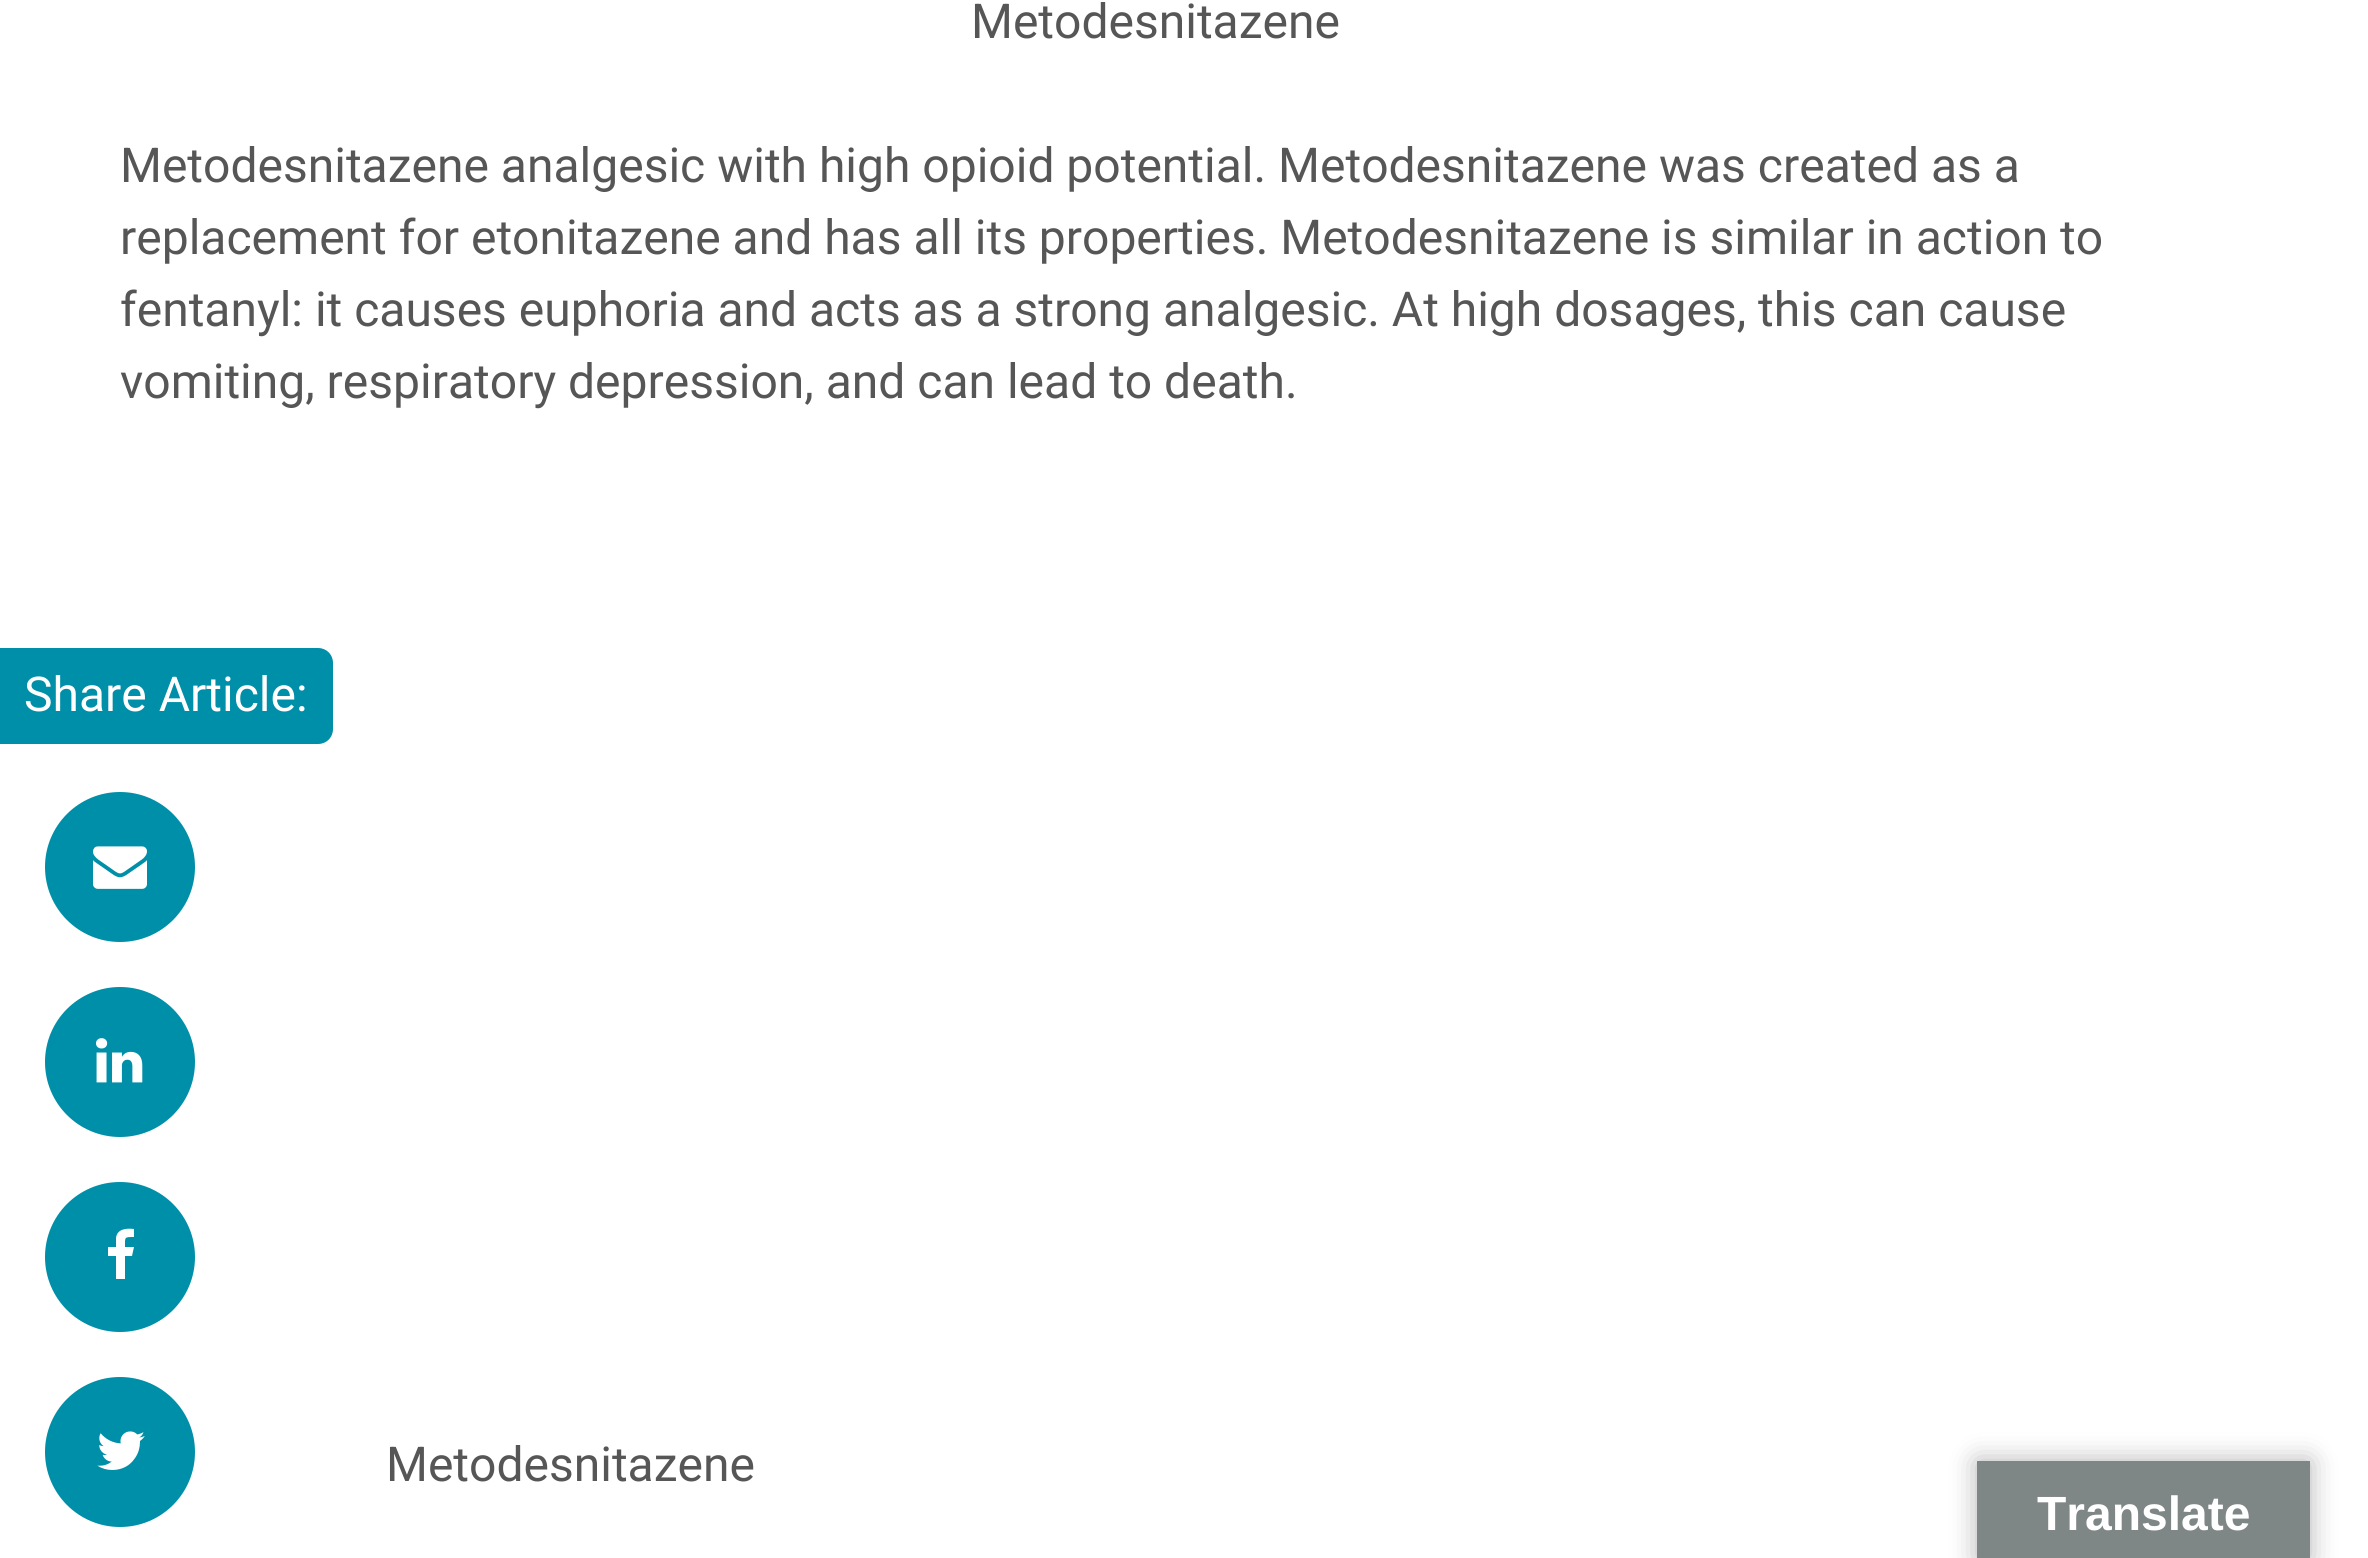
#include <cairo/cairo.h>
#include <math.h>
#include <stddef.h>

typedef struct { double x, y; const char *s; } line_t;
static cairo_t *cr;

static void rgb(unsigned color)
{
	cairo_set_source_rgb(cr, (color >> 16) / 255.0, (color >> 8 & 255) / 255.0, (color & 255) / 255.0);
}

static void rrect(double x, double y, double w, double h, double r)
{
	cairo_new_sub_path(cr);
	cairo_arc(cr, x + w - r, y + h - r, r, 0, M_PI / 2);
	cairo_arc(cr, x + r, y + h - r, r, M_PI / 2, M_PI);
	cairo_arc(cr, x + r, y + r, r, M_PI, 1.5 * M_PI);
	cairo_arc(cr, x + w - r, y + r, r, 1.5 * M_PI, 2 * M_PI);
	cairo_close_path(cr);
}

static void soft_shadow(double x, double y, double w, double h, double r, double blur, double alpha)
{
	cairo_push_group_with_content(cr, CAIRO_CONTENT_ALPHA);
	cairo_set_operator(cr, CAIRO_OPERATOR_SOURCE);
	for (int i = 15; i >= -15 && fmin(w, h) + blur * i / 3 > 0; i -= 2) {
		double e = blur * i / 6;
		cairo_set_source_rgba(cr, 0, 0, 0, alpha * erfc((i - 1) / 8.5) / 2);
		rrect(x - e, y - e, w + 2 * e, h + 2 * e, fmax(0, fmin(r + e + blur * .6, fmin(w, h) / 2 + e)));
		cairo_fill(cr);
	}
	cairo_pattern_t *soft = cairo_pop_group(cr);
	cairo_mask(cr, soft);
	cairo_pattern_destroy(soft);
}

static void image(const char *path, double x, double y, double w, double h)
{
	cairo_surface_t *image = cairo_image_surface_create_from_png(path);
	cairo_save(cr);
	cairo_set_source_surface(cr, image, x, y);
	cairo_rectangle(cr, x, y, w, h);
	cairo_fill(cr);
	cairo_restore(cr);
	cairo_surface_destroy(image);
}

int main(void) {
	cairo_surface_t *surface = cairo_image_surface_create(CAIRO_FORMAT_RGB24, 2368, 1558);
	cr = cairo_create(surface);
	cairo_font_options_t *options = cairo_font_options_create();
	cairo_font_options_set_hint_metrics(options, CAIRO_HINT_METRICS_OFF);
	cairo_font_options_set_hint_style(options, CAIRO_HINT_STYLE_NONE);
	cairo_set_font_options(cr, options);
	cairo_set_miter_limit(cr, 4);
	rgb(0xffffff);
	cairo_paint(cr);
	rgb(0x008fa8);
	cairo_new_path(cr);
	cairo_move_to(cr, 0, 648);
	cairo_line_to(cr, 318, 648);
	cairo_curve_to(cr, 326.5, 648, 333, 654.5, 333, 663);
	cairo_line_to(cr, 333, 729);
	cairo_curve_to(cr, 333, 737.5, 326.5, 744, 318, 744);
	cairo_line_to(cr, 0, 744);
	cairo_close_path(cr);
	cairo_fill(cr);
	cairo_arc(cr, 120, 867, 75, 0, 2 * M_PI);
	cairo_fill(cr);
	image("img/1.png", 93, 846, 54, 43);
	cairo_arc(cr, 120, 1062, 75, 0, 2 * M_PI);
	cairo_fill(cr);
	image("img/2.png", 96, 1038, 47, 45);
	cairo_arc(cr, 120, 1257, 75, 0, 2 * M_PI);
	cairo_fill(cr);
	rgb(0xffffff);
	cairo_new_path(cr);
	cairo_move_to(cr, 134, 1229);
	cairo_line_to(cr, 134, 1237);
	cairo_curve_to(cr, 124, 1237, 125, 1237, 125, 1247);
	cairo_line_to(cr, 134, 1247);
	cairo_line_to(cr, 132, 1256);
	cairo_line_to(cr, 125, 1256);
	cairo_line_to(cr, 125, 1279);
	cairo_line_to(cr, 116, 1279);
	cairo_line_to(cr, 116, 1256);
	cairo_line_to(cr, 108, 1256);
	cairo_line_to(cr, 108, 1247);
	cairo_line_to(cr, 116, 1247);
	cairo_line_to(cr, 116, 1238);
	cairo_curve_to(cr, 117, 1229, 126, 1228, 134, 1229);
	cairo_close_path(cr);
	cairo_fill(cr);
	rgb(0x008fa8);
	cairo_arc(cr, 120, 1452, 75, 0, 2 * M_PI);
	cairo_fill(cr);
	image("img/3.png", 97, 1431, 48, 39);
	rgb(0x000000);
	soft_shadow(1977, 1461, 333, 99, 0, 13.5, 0.3);
	rgb(0x7f8786);
	cairo_rectangle(cr, 1977, 1461, 333, 97);
	cairo_fill(cr);
	cairo_select_font_face(cr, "Roboto", CAIRO_FONT_SLANT_NORMAL, CAIRO_FONT_WEIGHT_NORMAL);
	cairo_set_font_size(cr, 48);
	rgb(0x565656);
	{
		static const line_t items[] = {
			{971, 38, "Metodesnitazene"},
			{120, 182, "Metodesnitazene analgesic with high opioid potential. Metodesnitazene was created as a"},
			{120, 254, "replacement for etonitazene and has all its properties. Metodesnitazene is similar in action to"},
			{120, 326, "fentanyl: it causes euphoria and acts as a strong analgesic. At high dosages, this can cause"},
			{120, 398, "vomiting, respiratory depression, and can lead to death."},
			{386, 1481, "Metodesnitazene"},
		};
		for (size_t i = 0; i < sizeof items / sizeof *items; i++) {
			cairo_move_to(cr, items[i].x, items[i].y);
			cairo_show_text(cr, items[i].s);
		}
	}
	rgb(0xffffff);
	cairo_move_to(cr, 24, 711);
	cairo_show_text(cr, "Share Article:");
	cairo_select_font_face(cr, "Liberation Sans", CAIRO_FONT_SLANT_NORMAL, CAIRO_FONT_WEIGHT_BOLD);
	cairo_move_to(cr, 2037, 1530);
	cairo_show_text(cr, "Translate");
	cairo_surface_write_to_png(surface, "page.png");
	cairo_font_options_destroy(options);
	cairo_destroy(cr);
	cairo_surface_destroy(surface);
	return 0;
}
